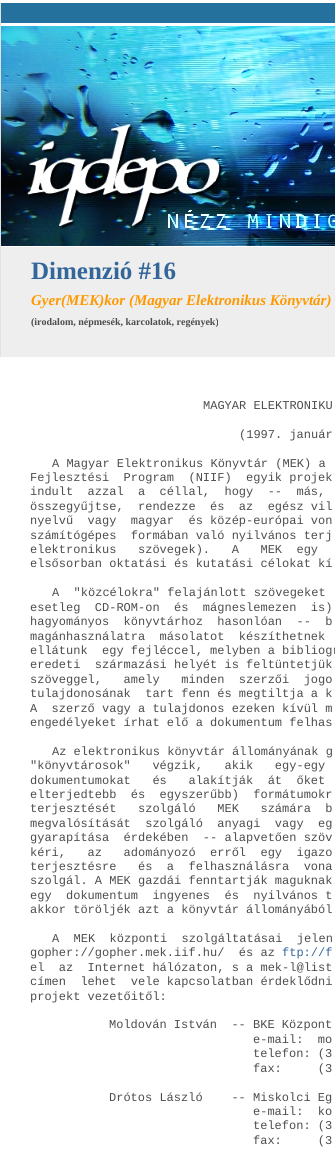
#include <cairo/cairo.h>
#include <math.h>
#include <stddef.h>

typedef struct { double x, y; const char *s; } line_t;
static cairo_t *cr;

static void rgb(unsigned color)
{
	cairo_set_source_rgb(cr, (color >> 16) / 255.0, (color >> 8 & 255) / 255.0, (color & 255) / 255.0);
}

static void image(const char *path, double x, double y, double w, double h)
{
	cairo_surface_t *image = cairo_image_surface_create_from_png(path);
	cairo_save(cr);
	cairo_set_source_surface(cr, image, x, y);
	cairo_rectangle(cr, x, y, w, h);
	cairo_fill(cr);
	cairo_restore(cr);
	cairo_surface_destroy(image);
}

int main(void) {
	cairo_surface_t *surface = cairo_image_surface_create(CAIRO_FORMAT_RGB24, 335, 1150);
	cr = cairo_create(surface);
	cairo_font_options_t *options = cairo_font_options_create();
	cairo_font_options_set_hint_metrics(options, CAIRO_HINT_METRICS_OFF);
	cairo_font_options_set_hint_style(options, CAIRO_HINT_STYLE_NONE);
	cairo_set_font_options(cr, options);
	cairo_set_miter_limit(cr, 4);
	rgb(0xffffff);
	cairo_paint(cr);
	rgb(0xe2e2e2);
	cairo_rectangle(cr, 0, 3, 1, 354);
	cairo_fill(cr);
	rgb(0x25719e);
	cairo_rectangle(cr, 1, 3, 334, 20);
	cairo_fill(cr);
	image("img/1.png", 1, 26, 334, 220);
	rgb(0xeeeeee);
	cairo_rectangle(cr, 1, 247, 334, 110);
	cairo_fill(cr);
	cairo_select_font_face(cr, "Liberation Serif", CAIRO_FONT_SLANT_NORMAL, CAIRO_FONT_WEIGHT_BOLD);
	cairo_set_font_size(cr, 25);
	rgb(0x336699);
	cairo_move_to(cr, 31, 279);
	cairo_show_text(cr, "Dimenzió #16");
	cairo_select_font_face(cr, "Liberation Serif", CAIRO_FONT_SLANT_ITALIC, CAIRO_FONT_WEIGHT_BOLD);
	cairo_set_font_size(cr, 15);
	rgb(0xff9900);
	cairo_move_to(cr, 31, 305);
	cairo_show_text(cr, "Gyer(MEK)kor (Magyar Elektronikus Könyvtár)");
	cairo_select_font_face(cr, "Liberation Serif", CAIRO_FONT_SLANT_NORMAL, CAIRO_FONT_WEIGHT_BOLD);
	cairo_set_font_size(cr, 10);
	rgb(0x4d4d4d);
	cairo_move_to(cr, 31, 325);
	cairo_show_text(cr, "(irodalom, népmesék, karcolatok, regények)");
	cairo_select_font_face(cr, "Liberation Mono", CAIRO_FONT_SLANT_NORMAL, CAIRO_FONT_WEIGHT_NORMAL);
	cairo_set_font_size(cr, 12);
	{
		static const line_t items[] = {
			{203, 409, "MAGYAR ELEKTRONIKU"},
			{239, 438, "(1997. január"},
			{52, 467, "A Magyar Elektronikus Könyvtár (MEK) a"},
			{30, 481, "Fejlesztési  Program  (NIIF)  egyik projek"},
			{30, 495, "indult  azzal  a  céllal,  hogy  --  más,"},
			{30, 510, "összegyűjtse,  rendezze  és  az  egész vil"},
			{30, 524, "nyelvű  vagy  magyar  és közép-európai von"},
			{30, 539, "számítógépes  formában való nyilvános terj"},
			{30, 553, "elektronikus   szövegek).   A   MEK  egy"},
			{30, 567, "elsősorban oktatási és kutatási célokat kí"},
			{52, 596, "A  \"közcélokra\" felajánlott szövegeket"},
			{30, 611, "esetleg  CD-ROM-on  és  mágneslemezen  is)"},
			{30, 625, "hagyományos  könyvtárhoz  hasonlóan  --  b"},
			{30, 640, "magánhasználatra  másolatot  készíthetnek"},
			{30, 654, "ellátunk  egy fejléccel, melyben a bibliogr"},
			{30, 668, "eredeti  származási helyét is feltüntetjük"},
			{30, 683, "szöveggel,   amely   minden  szerzői  jogo"},
			{30, 697, "tulajdonosának  tart fenn és megtiltja a k"},
			{30, 712, "A  szerző vagy a tulajdonos ezeken kívül m"},
			{30, 726, "engedélyeket írhat elő a dokumentum felhas"},
			{52, 755, "Az elektronikus könyvtár állományának g"},
			{30, 769, "\"könyvtárosok\"   végzik,   akik   egy-egy"},
			{30, 784, "dokumentumokat   és   alakítják  át  őket"},
			{30, 798, "elterjedtebb  és  egyszerűbb)  formátumokr"},
			{30, 812, "terjesztését   szolgáló   MEK   számára  b"},
			{30, 827, "megvalósítását  szolgáló  anyagi  vagy  eg"},
			{30, 841, "gyarapítása  érdekében  -- alapvetően szöv"},
			{30, 856, "kéri,   az   adományozó  erről  egy  igazo"},
			{30, 870, "terjesztésre   és  a  felhasználásra  vona"},
			{30, 884, "szolgál. A MEK gazdái fenntartják maguknak"},
			{30, 899, "egy  dokumentum  ingyenes  és  nyilvános t"},
			{30, 913, "akkor töröljék azt a könyvtár állományából"},
			{52, 942, "A  MEK  központi  szolgáltatásai  jelen"},
			{30, 956, "gopher://gopher.mek.iif.hu/  és az"},
		};
		for (size_t i = 0; i < sizeof items / sizeof *items; i++) {
			cairo_move_to(cr, items[i].x, items[i].y);
			cairo_show_text(cr, items[i].s);
		}
	}
	rgb(0x336699);
	cairo_move_to(cr, 282, 956);
	cairo_show_text(cr, "ftp://f");
	rgb(0x4d4d4d);
	{
		static const line_t items[] = {
			{30, 971, "el  az  Internet hálózaton, s a mek-l@list"},
			{30, 985, "címen  lehet  vele kapcsolatban érdeklődni"},
			{30, 1000, "projekt vezetőitől:"},
			{109, 1028, "Moldován István  -- BKE Központ"},
			{253, 1043, "e-mail:  mo"},
			{253, 1057, "telefon: (3"},
			{253, 1072, "fax:     (3"},
			{109, 1101, "Drótos László    -- Miskolci Eg"},
			{253, 1115, "e-mail:  ko"},
			{253, 1129, "telefon: (3"},
			{253, 1144, "fax:     (3"},
		};
		for (size_t i = 0; i < sizeof items / sizeof *items; i++) {
			cairo_move_to(cr, items[i].x, items[i].y);
			cairo_show_text(cr, items[i].s);
		}
	}
	cairo_surface_write_to_png(surface, "page.png");
	cairo_font_options_destroy(options);
	cairo_destroy(cr);
	cairo_surface_destroy(surface);
	return 0;
}
